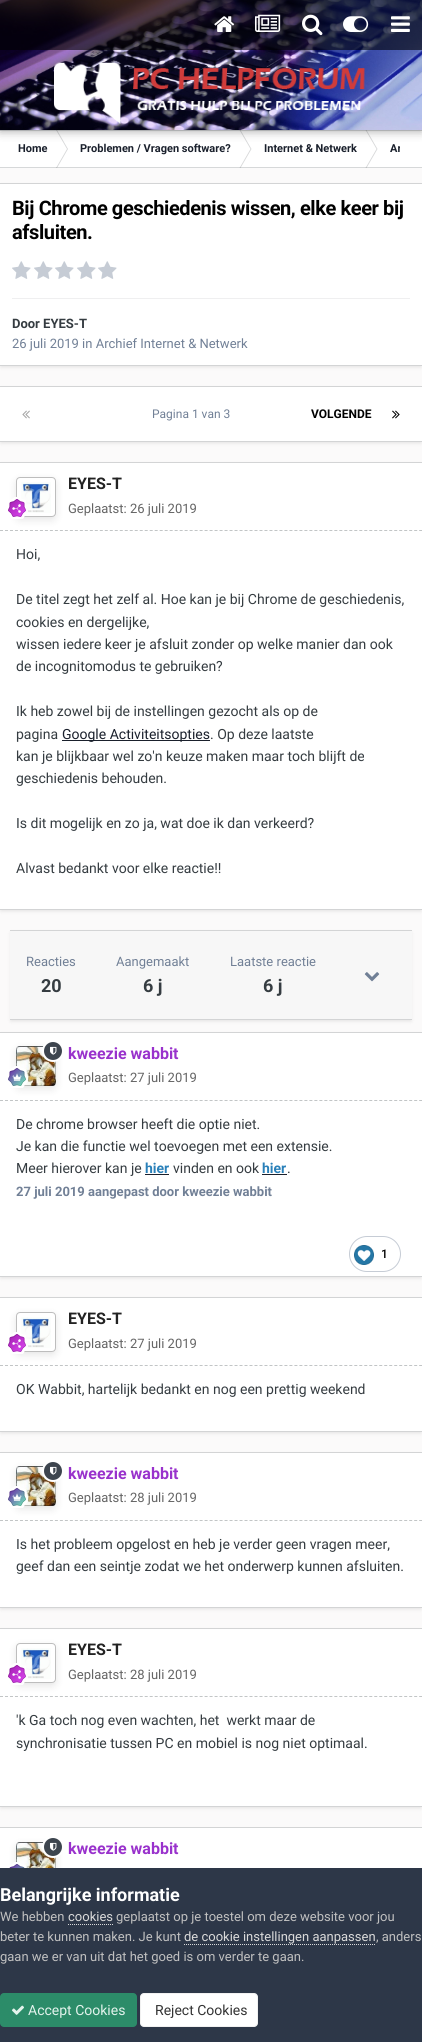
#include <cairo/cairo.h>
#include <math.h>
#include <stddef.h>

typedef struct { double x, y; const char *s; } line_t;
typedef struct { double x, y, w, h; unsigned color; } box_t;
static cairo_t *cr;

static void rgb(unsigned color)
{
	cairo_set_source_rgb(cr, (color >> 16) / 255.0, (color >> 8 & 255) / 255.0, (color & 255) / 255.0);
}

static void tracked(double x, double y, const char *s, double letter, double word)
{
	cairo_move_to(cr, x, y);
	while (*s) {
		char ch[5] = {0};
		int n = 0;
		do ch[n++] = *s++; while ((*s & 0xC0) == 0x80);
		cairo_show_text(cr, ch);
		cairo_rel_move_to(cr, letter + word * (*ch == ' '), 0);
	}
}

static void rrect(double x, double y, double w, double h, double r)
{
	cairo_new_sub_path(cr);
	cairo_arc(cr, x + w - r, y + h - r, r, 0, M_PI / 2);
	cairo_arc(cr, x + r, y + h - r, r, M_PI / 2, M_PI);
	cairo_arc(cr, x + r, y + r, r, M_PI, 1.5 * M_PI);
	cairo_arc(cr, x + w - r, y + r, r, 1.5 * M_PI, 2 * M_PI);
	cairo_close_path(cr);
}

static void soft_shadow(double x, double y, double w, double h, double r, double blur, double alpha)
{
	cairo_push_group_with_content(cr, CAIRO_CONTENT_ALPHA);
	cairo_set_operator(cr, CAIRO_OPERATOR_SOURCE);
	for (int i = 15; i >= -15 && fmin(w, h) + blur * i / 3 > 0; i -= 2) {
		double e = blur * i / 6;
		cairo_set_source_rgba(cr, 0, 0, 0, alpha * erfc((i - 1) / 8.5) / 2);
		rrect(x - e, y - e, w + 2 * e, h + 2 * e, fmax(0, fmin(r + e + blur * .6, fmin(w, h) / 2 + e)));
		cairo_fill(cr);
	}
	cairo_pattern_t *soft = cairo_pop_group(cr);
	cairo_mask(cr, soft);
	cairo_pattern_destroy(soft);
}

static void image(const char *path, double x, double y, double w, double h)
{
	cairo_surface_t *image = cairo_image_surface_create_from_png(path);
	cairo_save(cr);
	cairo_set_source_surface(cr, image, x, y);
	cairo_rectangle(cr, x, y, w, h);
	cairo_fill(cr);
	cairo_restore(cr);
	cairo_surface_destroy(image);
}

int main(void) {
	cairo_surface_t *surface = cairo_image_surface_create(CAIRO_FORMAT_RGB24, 422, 2042);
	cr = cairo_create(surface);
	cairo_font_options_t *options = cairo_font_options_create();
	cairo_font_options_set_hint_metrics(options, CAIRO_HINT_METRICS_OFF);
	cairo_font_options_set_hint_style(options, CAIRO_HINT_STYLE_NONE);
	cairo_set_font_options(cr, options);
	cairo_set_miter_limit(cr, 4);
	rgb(0xfbfafa);
	cairo_paint(cr);
	rgb(0xffffff);
	cairo_rectangle(cr, 0, 130, 422, 38);
	cairo_fill(cr);
	rgb(0xd7d8d9);
	cairo_new_path(cr);
	cairo_move_to(cr, 56, 130);
	cairo_line_to(cr, 57, 130);
	cairo_line_to(cr, 68, 149);
	cairo_line_to(cr, 67, 149);
	cairo_close_path(cr);
	cairo_move_to(cr, 56, 168);
	cairo_line_to(cr, 57, 168);
	cairo_line_to(cr, 68, 149);
	cairo_line_to(cr, 67, 149);
	cairo_close_path(cr);
	cairo_fill(cr);
	cairo_new_path(cr);
	cairo_move_to(cr, 239.5, 130);
	cairo_line_to(cr, 240.5, 130);
	cairo_line_to(cr, 251.5, 149);
	cairo_line_to(cr, 250.5, 149);
	cairo_close_path(cr);
	cairo_move_to(cr, 239.5, 168);
	cairo_line_to(cr, 240.5, 168);
	cairo_line_to(cr, 251.5, 149);
	cairo_line_to(cr, 250.5, 149);
	cairo_close_path(cr);
	cairo_fill(cr);
	cairo_new_path(cr);
	cairo_move_to(cr, 365.5, 130);
	cairo_line_to(cr, 366.5, 130);
	cairo_line_to(cr, 377.5, 149);
	cairo_line_to(cr, 376.5, 149);
	cairo_close_path(cr);
	cairo_move_to(cr, 365.5, 168);
	cairo_line_to(cr, 366.5, 168);
	cairo_line_to(cr, 377.5, 149);
	cairo_line_to(cr, 376.5, 149);
	cairo_close_path(cr);
	cairo_fill(cr);
	cairo_set_source_rgba(cr, 0.208, 0.235, 0.255, 0.2);
	cairo_rectangle(cr, 0, 130, 422, 1);
	cairo_fill(cr);
	rgb(0x000000);
	soft_shadow(0, 1, 422, 130, 0, 5, 0.35);
	image("img/1.png", 0, 0, 422, 130);
	cairo_set_source_rgba(cr, 0, 0, 0, 0.6);
	cairo_rectangle(cr, 0, 0, 422, 50);
	cairo_fill(cr);
	image("img/2.png", 214, 16, 21, 16);
	image("img/3.png", 255, 14, 26, 18);
	image("img/4.png", 302, 14, 21, 22);
	image("img/5.png", 343, 16, 26, 16);
	image("img/6.png", 391, 16, 19, 16);
	image("img/7.png", 54, 62, 311, 62);
	cairo_set_source_rgba(cr, 0.208, 0.235, 0.255, 0.2);
	cairo_rectangle(cr, 0, 167, 422, 1);
	cairo_fill(cr);
	rgb(0x000000);
	soft_shadow(1, 186, 420, 181, 0, 2, 0.1);
	{
		static const box_t items[] = {
			{0, 184, 422, 181, 0xffffff},
			{0, 183, 422, 1, 0xd3d4d5},
			{0, 365, 422, 1, 0xd3d4d5},
		};
		for (size_t i = 0; i < sizeof items / sizeof *items; i++) {
			rgb(items[i].color);
			cairo_rectangle(cr, items[i].x, items[i].y, items[i].w, items[i].h);
			cairo_fill(cr);
		}
	}
	image("img/8.png", 12, 261, 19, 18);
	image("img/8.png", 34, 261, 19, 18);
	image("img/8.png", 55, 261, 19, 18);
	image("img/8.png", 77, 261, 19, 18);
	image("img/8.png", 98, 261, 19, 18);
	rgb(0xefeff0);
	cairo_rectangle(cr, 12, 298, 398, 1);
	cairo_fill(cr);
	rgb(0x000000);
	soft_shadow(1, 389, 420, 54, 0, 2, 0.1);
	{
		static const box_t items[] = {
			{0, 387, 422, 54, 0xffffff},
			{0, 386, 422, 1, 0xd3d4d5},
			{0, 441, 422, 1, 0xd3d4d5},
		};
		for (size_t i = 0; i < sizeof items / sizeof *items; i++) {
			rgb(items[i].color);
			cairo_rectangle(cr, items[i].x, items[i].y, items[i].w, items[i].h);
			cairo_fill(cr);
		}
	}
	image("img/9.png", 22, 410, 8, 9);
	image("img/10.png", 392, 410, 8, 9);
	rgb(0x000000);
	soft_shadow(1, 465, 420, 446, 0, 2, 0.1);
	{
		static const box_t items[] = {
			{0, 463, 422, 446, 0xffffff},
			{0, 462, 422, 1, 0xd3d4d5},
			{0, 909, 422, 1, 0xd3d4d5},
		};
		for (size_t i = 0; i < sizeof items / sizeof *items; i++) {
			rgb(items[i].color);
			cairo_rectangle(cr, items[i].x, items[i].y, items[i].w, items[i].h);
			cairo_fill(cr);
		}
	}
	cairo_new_path(cr);
	cairo_move_to(cr, 0, 530.5);
	cairo_line_to(cr, 422, 530.5);
	rgb(0xc2c5c6);
	cairo_set_line_width(cr, 1);
	cairo_set_dash(cr, (double[]){3, 1.99}, 2, 0);
	cairo_stroke(cr);
	image("img/11.png", 21, 482, 30, 31);
	cairo_save(cr);
	cairo_set_fill_rule(cr, CAIRO_FILL_RULE_EVEN_ODD);
	cairo_new_path(cr);
	cairo_move_to(cr, 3, 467);
	cairo_line_to(cr, 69, 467);
	cairo_line_to(cr, 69, 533);
	cairo_line_to(cr, 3, 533);
	cairo_close_path(cr);
	cairo_move_to(cr, 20, 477);
	cairo_line_to(cr, 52, 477);
	cairo_curve_to(cr, 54, 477, 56, 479, 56, 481);
	cairo_line_to(cr, 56, 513);
	cairo_curve_to(cr, 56, 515, 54, 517, 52, 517);
	cairo_line_to(cr, 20, 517);
	cairo_curve_to(cr, 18, 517, 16, 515, 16, 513);
	cairo_line_to(cr, 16, 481);
	cairo_curve_to(cr, 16, 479, 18, 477, 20, 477);
	cairo_close_path(cr);
	cairo_clip(cr);
	rgb(0x000000);
	soft_shadow(16, 480, 40, 40, 4, 4, 0.1);
	cairo_restore(cr);
	rrect(16.5, 477.5, 39, 39, 3.5);
	cairo_set_source_rgba(cr, 0.133, 0.133, 0.133, 0.3);
	cairo_set_dash(cr, NULL, 0, 0);
	cairo_stroke(cr);
	image("img/12.png", 8, 497, 18, 22);
	rgb(0x1a202c);
	cairo_rectangle(cr, 62, 740, 148, 1);
	cairo_fill(cr);
	rgb(0x000000);
	soft_shadow(11, 933, 400, 88, 0, 2, 0.1);
	{
		static const box_t items[] = {
			{10, 930, 402, 1, 0xd3d4d5},
			{10, 1019, 402, 1, 0xd3d4d5},
			{10, 931, 402, 88, 0xf7f7f7},
		};
		for (size_t i = 0; i < sizeof items / sizeof *items; i++) {
			rgb(items[i].color);
			cairo_rectangle(cr, items[i].x, items[i].y, items[i].w, items[i].h);
			cairo_fill(cr);
		}
	}
	image("img/13.png", 364, 972, 16, 10);
	rgb(0x000000);
	soft_shadow(1, 1035, 420, 243, 0, 2, 0.1);
	{
		static const box_t items[] = {
			{0, 1033, 422, 243, 0xffffff},
			{0, 1032, 422, 1, 0xd3d4d5},
			{0, 1276, 422, 1, 0xd3d4d5},
		};
		for (size_t i = 0; i < sizeof items / sizeof *items; i++) {
			rgb(items[i].color);
			cairo_rectangle(cr, items[i].x, items[i].y, items[i].w, items[i].h);
			cairo_fill(cr);
		}
	}
	cairo_new_path(cr);
	cairo_move_to(cr, 0, 1100.5);
	cairo_line_to(cr, 422, 1100.5);
	rgb(0xc2c5c6);
	cairo_set_dash(cr, (double[]){3, 1.99}, 2, 0);
	cairo_stroke(cr);
	image("img/14.png", 16, 1046, 40, 40);
	cairo_save(cr);
	cairo_set_fill_rule(cr, CAIRO_FILL_RULE_EVEN_ODD);
	cairo_new_path(cr);
	cairo_move_to(cr, 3, 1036);
	cairo_line_to(cr, 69, 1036);
	cairo_line_to(cr, 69, 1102);
	cairo_line_to(cr, 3, 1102);
	cairo_close_path(cr);
	cairo_move_to(cr, 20, 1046);
	cairo_line_to(cr, 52, 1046);
	cairo_curve_to(cr, 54, 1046, 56, 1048, 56, 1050);
	cairo_line_to(cr, 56, 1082);
	cairo_curve_to(cr, 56, 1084, 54, 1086, 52, 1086);
	cairo_line_to(cr, 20, 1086);
	cairo_curve_to(cr, 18, 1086, 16, 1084, 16, 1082);
	cairo_line_to(cr, 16, 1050);
	cairo_curve_to(cr, 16, 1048, 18, 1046, 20, 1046);
	cairo_close_path(cr);
	cairo_clip(cr);
	rgb(0x000000);
	soft_shadow(16, 1049, 40, 40, 4, 4, 0.1);
	cairo_restore(cr);
	rrect(16.5, 1046.5, 39, 39, 3.5);
	cairo_set_source_rgba(cr, 0.133, 0.133, 0.133, 0.3);
	cairo_set_dash(cr, NULL, 0, 0);
	cairo_stroke(cr);
	rgb(0x3d454e);
	cairo_arc(cr, 53, 1051, 10, 0, 2 * M_PI);
	cairo_fill_preserve(cr);
	rgb(0xffffff);
	cairo_set_line_width(cr, 2);
	cairo_stroke(cr);
	image("img/15.png", 50, 1046, 7, 9);
	image("img/16.png", 8, 1066, 20, 22);
	rgb(0x1a202c);
	cairo_rectangle(cr, 145, 1174, 24, 1);
	cairo_fill(cr);
	cairo_rectangle(cr, 262, 1174, 25, 1);
	cairo_fill(cr);
	rrect(349.5, 1236.5, 51, 35, 17.5);
	rgb(0xc6ccd5);
	cairo_set_line_width(cr, 1);
	cairo_stroke(cr);
	image("img/17.png", 354, 1245, 20, 20);
	rgb(0x000000);
	soft_shadow(1, 1300, 420, 133, 0, 2, 0.1);
	{
		static const box_t items[] = {
			{0, 1298, 422, 133, 0xffffff},
			{0, 1297, 422, 1, 0xd3d4d5},
			{0, 1431, 422, 1, 0xd3d4d5},
		};
		for (size_t i = 0; i < sizeof items / sizeof *items; i++) {
			rgb(items[i].color);
			cairo_rectangle(cr, items[i].x, items[i].y, items[i].w, items[i].h);
			cairo_fill(cr);
		}
	}
	cairo_new_path(cr);
	cairo_move_to(cr, 0, 1365.5);
	cairo_line_to(cr, 422, 1365.5);
	rgb(0xc2c5c6);
	cairo_set_dash(cr, (double[]){3, 1.99}, 2, 0);
	cairo_stroke(cr);
	image("img/11.png", 21, 1317, 30, 31);
	cairo_save(cr);
	cairo_set_fill_rule(cr, CAIRO_FILL_RULE_EVEN_ODD);
	cairo_new_path(cr);
	cairo_move_to(cr, 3, 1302);
	cairo_line_to(cr, 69, 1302);
	cairo_line_to(cr, 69, 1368);
	cairo_line_to(cr, 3, 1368);
	cairo_close_path(cr);
	cairo_move_to(cr, 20, 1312);
	cairo_line_to(cr, 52, 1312);
	cairo_curve_to(cr, 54, 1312, 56, 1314, 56, 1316);
	cairo_line_to(cr, 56, 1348);
	cairo_curve_to(cr, 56, 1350, 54, 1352, 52, 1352);
	cairo_line_to(cr, 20, 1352);
	cairo_curve_to(cr, 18, 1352, 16, 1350, 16, 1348);
	cairo_line_to(cr, 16, 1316);
	cairo_curve_to(cr, 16, 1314, 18, 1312, 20, 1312);
	cairo_close_path(cr);
	cairo_clip(cr);
	rgb(0x000000);
	soft_shadow(16, 1315, 40, 40, 4, 4, 0.1);
	cairo_restore(cr);
	rrect(16.5, 1312.5, 39, 39, 3.5);
	cairo_set_source_rgba(cr, 0.133, 0.133, 0.133, 0.3);
	cairo_set_dash(cr, NULL, 0, 0);
	cairo_stroke(cr);
	image("img/18.png", 8, 1332, 18, 22);
	rgb(0x000000);
	soft_shadow(1, 1455, 420, 154, 0, 2, 0.1);
	{
		static const box_t items[] = {
			{0, 1453, 422, 154, 0xffffff},
			{0, 1452, 422, 1, 0xd3d4d5},
			{0, 1607, 422, 1, 0xd3d4d5},
		};
		for (size_t i = 0; i < sizeof items / sizeof *items; i++) {
			rgb(items[i].color);
			cairo_rectangle(cr, items[i].x, items[i].y, items[i].w, items[i].h);
			cairo_fill(cr);
		}
	}
	cairo_new_path(cr);
	cairo_move_to(cr, 0, 1520.5);
	cairo_line_to(cr, 422, 1520.5);
	rgb(0xc2c5c6);
	cairo_set_dash(cr, (double[]){3, 1.99}, 2, 0);
	cairo_stroke(cr);
	image("img/14.png", 16, 1466, 40, 40);
	cairo_save(cr);
	cairo_set_fill_rule(cr, CAIRO_FILL_RULE_EVEN_ODD);
	cairo_new_path(cr);
	cairo_move_to(cr, 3, 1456);
	cairo_line_to(cr, 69, 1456);
	cairo_line_to(cr, 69, 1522);
	cairo_line_to(cr, 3, 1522);
	cairo_close_path(cr);
	cairo_move_to(cr, 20, 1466);
	cairo_line_to(cr, 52, 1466);
	cairo_curve_to(cr, 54, 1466, 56, 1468, 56, 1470);
	cairo_line_to(cr, 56, 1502);
	cairo_curve_to(cr, 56, 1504, 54, 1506, 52, 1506);
	cairo_line_to(cr, 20, 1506);
	cairo_curve_to(cr, 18, 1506, 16, 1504, 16, 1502);
	cairo_line_to(cr, 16, 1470);
	cairo_curve_to(cr, 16, 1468, 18, 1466, 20, 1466);
	cairo_close_path(cr);
	cairo_clip(cr);
	rgb(0x000000);
	soft_shadow(16, 1469, 40, 40, 4, 4, 0.1);
	cairo_restore(cr);
	rrect(16.5, 1466.5, 39, 39, 3.5);
	cairo_set_source_rgba(cr, 0.133, 0.133, 0.133, 0.3);
	cairo_set_dash(cr, NULL, 0, 0);
	cairo_stroke(cr);
	rgb(0x3d454e);
	cairo_arc(cr, 53, 1471, 10, 0, 2 * M_PI);
	cairo_fill_preserve(cr);
	rgb(0xffffff);
	cairo_set_line_width(cr, 2);
	cairo_stroke(cr);
	image("img/15.png", 50, 1466, 7, 9);
	image("img/16.png", 8, 1486, 20, 22);
	rgb(0x000000);
	soft_shadow(1, 1631, 420, 177, 0, 2, 0.1);
	{
		static const box_t items[] = {
			{0, 1629, 422, 177, 0xffffff},
			{0, 1628, 422, 1, 0xd3d4d5},
			{0, 1806, 422, 1, 0xd3d4d5},
		};
		for (size_t i = 0; i < sizeof items / sizeof *items; i++) {
			rgb(items[i].color);
			cairo_rectangle(cr, items[i].x, items[i].y, items[i].w, items[i].h);
			cairo_fill(cr);
		}
	}
	cairo_new_path(cr);
	cairo_move_to(cr, 0, 1696.5);
	cairo_line_to(cr, 422, 1696.5);
	rgb(0xc2c5c6);
	cairo_set_line_width(cr, 1);
	cairo_set_dash(cr, (double[]){3, 1.99}, 2, 0);
	cairo_stroke(cr);
	image("img/11.png", 21, 1648, 30, 31);
	cairo_save(cr);
	cairo_set_fill_rule(cr, CAIRO_FILL_RULE_EVEN_ODD);
	cairo_new_path(cr);
	cairo_move_to(cr, 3, 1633);
	cairo_line_to(cr, 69, 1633);
	cairo_line_to(cr, 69, 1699);
	cairo_line_to(cr, 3, 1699);
	cairo_close_path(cr);
	cairo_move_to(cr, 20, 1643);
	cairo_line_to(cr, 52, 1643);
	cairo_curve_to(cr, 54, 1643, 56, 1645, 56, 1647);
	cairo_line_to(cr, 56, 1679);
	cairo_curve_to(cr, 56, 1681, 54, 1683, 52, 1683);
	cairo_line_to(cr, 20, 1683);
	cairo_curve_to(cr, 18, 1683, 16, 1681, 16, 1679);
	cairo_line_to(cr, 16, 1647);
	cairo_curve_to(cr, 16, 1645, 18, 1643, 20, 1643);
	cairo_close_path(cr);
	cairo_clip(cr);
	rgb(0x000000);
	soft_shadow(16, 1646, 40, 40, 4, 4, 0.1);
	cairo_restore(cr);
	rrect(16.5, 1643.5, 39, 39, 3.5);
	cairo_set_source_rgba(cr, 0.133, 0.133, 0.133, 0.3);
	cairo_set_dash(cr, NULL, 0, 0);
	cairo_stroke(cr);
	image("img/18.png", 8, 1663, 18, 22);
	rgb(0xffffff);
	cairo_rectangle(cr, 0, 1828, 422, 40);
	cairo_fill(cr);
	rgb(0xd3d4d5);
	cairo_rectangle(cr, 0, 1827, 422, 1);
	cairo_fill(cr);
	image("img/19.png", 16, 1842, 40, 26);
	cairo_save(cr);
	cairo_set_fill_rule(cr, CAIRO_FILL_RULE_EVEN_ODD);
	cairo_new_path(cr);
	cairo_move_to(cr, 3, 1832);
	cairo_line_to(cr, 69, 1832);
	cairo_line_to(cr, 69, 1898);
	cairo_line_to(cr, 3, 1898);
	cairo_close_path(cr);
	cairo_move_to(cr, 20, 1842);
	cairo_line_to(cr, 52, 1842);
	cairo_curve_to(cr, 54, 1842, 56, 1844, 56, 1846);
	cairo_line_to(cr, 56, 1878);
	cairo_curve_to(cr, 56, 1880, 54, 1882, 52, 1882);
	cairo_line_to(cr, 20, 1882);
	cairo_curve_to(cr, 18, 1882, 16, 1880, 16, 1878);
	cairo_line_to(cr, 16, 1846);
	cairo_curve_to(cr, 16, 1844, 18, 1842, 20, 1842);
	cairo_close_path(cr);
	cairo_clip(cr);
	rgb(0x000000);
	soft_shadow(16, 1845, 40, 40, 4, 4, 0.1);
	cairo_restore(cr);
	rrect(16.5, 1842.5, 39, 39, 3.5);
	cairo_set_source_rgba(cr, 0.133, 0.133, 0.133, 0.3);
	cairo_stroke(cr);
	rgb(0x3d454e);
	cairo_arc(cr, 53, 1847, 10, 0, 2 * M_PI);
	cairo_fill_preserve(cr);
	rgb(0xffffff);
	cairo_set_line_width(cr, 2);
	cairo_stroke(cr);
	image("img/15.png", 50, 1842, 7, 9);
	image("img/20.png", 8, 1862, 19, 6);
	rgb(0x2d3748);
	cairo_rectangle(cr, 0, 1868, 422, 174);
	cairo_fill(cr);
	cairo_new_path(cr);
	cairo_move_to(cr, 68, 1924.5);
	cairo_line_to(cr, 113, 1924.5);
	rgb(0xdadada);
	cairo_set_line_width(cr, 1);
	cairo_set_dash(cr, (double[]){1, 1}, 2, 0);
	cairo_stroke(cr);
	cairo_new_path(cr);
	cairo_move_to(cr, 184, 1944.5);
	cairo_line_to(cr, 376, 1944.5);
	cairo_stroke(cr);
	rgb(0x2c8c69);
	rrect(0, 1993, 137, 34, 4);
	cairo_fill(cr);
	image("img/21.png", 12, 2005, 12, 10);
	rgb(0xffffff);
	rrect(140, 1993, 118, 34, 4);
	cairo_fill(cr);
	rrect(140.5, 1993.5, 117, 33, 3.5);
	cairo_set_source_rgba(cr, 0.2, 0.2, 0.2, 0.07);
	cairo_set_dash(cr, NULL, 0, 0);
	cairo_stroke(cr);
	cairo_select_font_face(cr, "Roboto", CAIRO_FONT_SLANT_NORMAL, CAIRO_FONT_WEIGHT_BOLD);
	cairo_set_font_size(cr, 11);
	rgb(0x1a202c);
	{
		static const line_t items[] = {
			{18, 152, "Home"},
			{80, 152, "Problemen / Vragen software?"},
			{264, 152, "Internet & Netwerk"},
		};
		for (size_t i = 0; i < sizeof items / sizeof *items; i++) {
			cairo_move_to(cr, items[i].x, items[i].y);
			cairo_show_text(cr, items[i].s);
		}
	}
	cairo_save(cr);
	cairo_rectangle(cr, 0, 130, 400, 38);
	cairo_clip(cr);
	cairo_move_to(cr, 390, 152);
	cairo_show_text(cr, "Ar");
	cairo_restore(cr);
	cairo_set_font_size(cr, 20);
	rgb(0x000000);
	tracked(12, 215, "Bij Chrome geschiedenis wissen, elke keer bij", -0.4, 0);
	tracked(12, 239, "afsluiten.", -0.4, 0);
	cairo_set_font_size(cr, 13);
	rgb(0x353c41);
	cairo_move_to(cr, 12, 328);
	cairo_show_text(cr, "Door EYES-T");
	cairo_select_font_face(cr, "Roboto", CAIRO_FONT_SLANT_NORMAL, CAIRO_FONT_WEIGHT_NORMAL);
	rgb(0x718096);
	cairo_move_to(cr, 12, 348);
	cairo_show_text(cr, "26 juli 2019 in Archief Internet & Netwerk");
	cairo_set_font_size(cr, 12);
	cairo_move_to(cr, 152, 418);
	cairo_show_text(cr, "Pagina 1 van 3");
	cairo_select_font_face(cr, "Roboto", CAIRO_FONT_SLANT_NORMAL, CAIRO_FONT_WEIGHT_BOLD);
	rgb(0x000000);
	cairo_move_to(cr, 311, 418);
	cairo_show_text(cr, "VOLGENDE");
	cairo_set_font_size(cr, 16);
	rgb(0x222222);
	cairo_move_to(cr, 68, 489);
	cairo_show_text(cr, "EYES-T");
	cairo_select_font_face(cr, "Roboto", CAIRO_FONT_SLANT_NORMAL, CAIRO_FONT_WEIGHT_NORMAL);
	cairo_set_font_size(cr, 13);
	rgb(0x646464);
	cairo_move_to(cr, 68, 513);
	cairo_show_text(cr, "Geplaatst: 26 juli 2019");
	cairo_set_font_size(cr, 14);
	rgb(0x353c41);
	{
		static const line_t items[] = {
			{16, 559, "Hoi,"},
			{16, 604, "De titel zegt het zelf al. Hoe kan je bij Chrome de geschiedenis,"},
			{16, 627, "cookies en dergelijke,"},
			{16, 649, "wissen iedere keer je afsluit zonder op welke manier dan ook"},
			{16, 671, "de incognitomodus te gebruiken?"},
			{16, 716, "Ik heb zowel bij de instellingen gezocht als op de"},
			{16, 739, "pagina"},
		};
		for (size_t i = 0; i < sizeof items / sizeof *items; i++) {
			cairo_move_to(cr, items[i].x, items[i].y);
			cairo_show_text(cr, items[i].s);
		}
	}
	rgb(0x1a202c);
	cairo_move_to(cr, 62, 739);
	cairo_show_text(cr, "Google Activiteitsopties");
	rgb(0x353c41);
	{
		static const line_t items[] = {
			{210, 739, ". Op deze laatste"},
			{16, 761, "kan je blijkbaar wel zo'n keuze maken maar toch blijft de"},
			{16, 783, "geschiedenis behouden."},
			{16, 828, "Is dit mogelijk en zo ja, wat doe ik dan verkeerd?"},
			{16, 873, "Alvast bedankt voor elke reactie!!"},
		};
		for (size_t i = 0; i < sizeof items / sizeof *items; i++) {
			cairo_move_to(cr, items[i].x, items[i].y);
			cairo_show_text(cr, items[i].s);
		}
	}
	cairo_set_font_size(cr, 13);
	rgb(0x718096);
	cairo_move_to(cr, 26, 966);
	cairo_show_text(cr, "Reacties");
	cairo_select_font_face(cr, "Roboto", CAIRO_FONT_SLANT_NORMAL, CAIRO_FONT_WEIGHT_BOLD);
	cairo_set_font_size(cr, 18);
	rgb(0x353c41);
	cairo_move_to(cr, 41, 992);
	cairo_show_text(cr, "20");
	cairo_select_font_face(cr, "Roboto", CAIRO_FONT_SLANT_NORMAL, CAIRO_FONT_WEIGHT_NORMAL);
	cairo_set_font_size(cr, 13);
	rgb(0x718096);
	cairo_move_to(cr, 116, 966);
	cairo_show_text(cr, "Aangemaakt");
	cairo_select_font_face(cr, "Roboto", CAIRO_FONT_SLANT_NORMAL, CAIRO_FONT_WEIGHT_BOLD);
	cairo_set_font_size(cr, 18);
	rgb(0x353c41);
	cairo_move_to(cr, 143, 992);
	cairo_show_text(cr, "6 j");
	cairo_select_font_face(cr, "Roboto", CAIRO_FONT_SLANT_NORMAL, CAIRO_FONT_WEIGHT_NORMAL);
	cairo_set_font_size(cr, 13);
	rgb(0x718096);
	cairo_move_to(cr, 230, 966);
	cairo_show_text(cr, "Laatste reactie");
	cairo_select_font_face(cr, "Roboto", CAIRO_FONT_SLANT_NORMAL, CAIRO_FONT_WEIGHT_BOLD);
	cairo_set_font_size(cr, 18);
	rgb(0x353c41);
	cairo_move_to(cr, 263, 992);
	cairo_show_text(cr, "6 j");
	cairo_set_font_size(cr, 16);
	rgb(0x9932cc);
	cairo_move_to(cr, 68, 1059);
	cairo_show_text(cr, "kweezie wabbit");
	cairo_select_font_face(cr, "Roboto", CAIRO_FONT_SLANT_NORMAL, CAIRO_FONT_WEIGHT_NORMAL);
	cairo_set_font_size(cr, 13);
	rgb(0x646464);
	cairo_move_to(cr, 68, 1082);
	cairo_show_text(cr, "Geplaatst: 27 juli 2019");
	cairo_set_font_size(cr, 14);
	rgb(0x353c41);
	{
		static const line_t items[] = {
			{16, 1129, "De chrome browser heeft die optie niet."},
			{16, 1151, "Je kan die functie wel toevoegen met een extensie."},
			{16, 1173, "Meer hierover kan je"},
		};
		for (size_t i = 0; i < sizeof items / sizeof *items; i++) {
			cairo_move_to(cr, items[i].x, items[i].y);
			cairo_show_text(cr, items[i].s);
		}
	}
	cairo_select_font_face(cr, "Roboto", CAIRO_FONT_SLANT_NORMAL, CAIRO_FONT_WEIGHT_BOLD);
	rgb(0x2980b9);
	cairo_move_to(cr, 145, 1173);
	cairo_show_text(cr, "hier");
	cairo_select_font_face(cr, "Roboto", CAIRO_FONT_SLANT_NORMAL, CAIRO_FONT_WEIGHT_NORMAL);
	rgb(0x353c41);
	cairo_move_to(cr, 173, 1173);
	cairo_show_text(cr, "vinden en ook");
	cairo_select_font_face(cr, "Roboto", CAIRO_FONT_SLANT_NORMAL, CAIRO_FONT_WEIGHT_BOLD);
	rgb(0x2980b9);
	cairo_move_to(cr, 262, 1173);
	cairo_show_text(cr, "hier");
	cairo_select_font_face(cr, "Roboto", CAIRO_FONT_SLANT_NORMAL, CAIRO_FONT_WEIGHT_NORMAL);
	rgb(0x353c41);
	cairo_move_to(cr, 287, 1173);
	cairo_show_text(cr, ".");
	cairo_select_font_face(cr, "Roboto", CAIRO_FONT_SLANT_NORMAL, CAIRO_FONT_WEIGHT_BOLD);
	cairo_set_font_size(cr, 13);
	rgb(0x718096);
	cairo_move_to(cr, 16, 1196);
	cairo_show_text(cr, "27 juli 2019 aangepast door kweezie wabbit");
	cairo_select_font_face(cr, "Roboto Medium", CAIRO_FONT_SLANT_NORMAL, CAIRO_FONT_WEIGHT_NORMAL);
	cairo_set_font_size(cr, 12);
	rgb(0x000000);
	cairo_move_to(cr, 381, 1258);
	cairo_show_text(cr, "1");
	cairo_select_font_face(cr, "Roboto", CAIRO_FONT_SLANT_NORMAL, CAIRO_FONT_WEIGHT_BOLD);
	cairo_set_font_size(cr, 16);
	rgb(0x222222);
	cairo_move_to(cr, 68, 1324);
	cairo_show_text(cr, "EYES-T");
	cairo_select_font_face(cr, "Roboto", CAIRO_FONT_SLANT_NORMAL, CAIRO_FONT_WEIGHT_NORMAL);
	cairo_set_font_size(cr, 13);
	rgb(0x646464);
	cairo_move_to(cr, 68, 1348);
	cairo_show_text(cr, "Geplaatst: 27 juli 2019");
	cairo_set_font_size(cr, 14);
	rgb(0x353c41);
	cairo_move_to(cr, 16, 1394);
	cairo_show_text(cr, "OK Wabbit, hartelijk bedankt en nog een prettig weekend");
	cairo_select_font_face(cr, "Roboto", CAIRO_FONT_SLANT_NORMAL, CAIRO_FONT_WEIGHT_BOLD);
	cairo_set_font_size(cr, 16);
	rgb(0x9932cc);
	cairo_move_to(cr, 68, 1479);
	cairo_show_text(cr, "kweezie wabbit");
	cairo_select_font_face(cr, "Roboto", CAIRO_FONT_SLANT_NORMAL, CAIRO_FONT_WEIGHT_NORMAL);
	cairo_set_font_size(cr, 13);
	rgb(0x646464);
	cairo_move_to(cr, 68, 1502);
	cairo_show_text(cr, "Geplaatst: 28 juli 2019");
	cairo_set_font_size(cr, 14);
	rgb(0x353c41);
	cairo_move_to(cr, 16, 1549);
	cairo_show_text(cr, "Is het probleem opgelost en heb je verder geen vragen meer,");
	cairo_move_to(cr, 16, 1571);
	cairo_show_text(cr, "geef dan een seintje zodat we het onderwerp kunnen afsluiten.");
	cairo_select_font_face(cr, "Roboto", CAIRO_FONT_SLANT_NORMAL, CAIRO_FONT_WEIGHT_BOLD);
	cairo_set_font_size(cr, 16);
	rgb(0x222222);
	cairo_move_to(cr, 68, 1655);
	cairo_show_text(cr, "EYES-T");
	cairo_select_font_face(cr, "Roboto", CAIRO_FONT_SLANT_NORMAL, CAIRO_FONT_WEIGHT_NORMAL);
	cairo_set_font_size(cr, 13);
	rgb(0x646464);
	cairo_move_to(cr, 68, 1679);
	cairo_show_text(cr, "Geplaatst: 28 juli 2019");
	cairo_set_font_size(cr, 14);
	rgb(0x353c41);
	cairo_move_to(cr, 16, 1725);
	cairo_show_text(cr, "'k Ga toch nog even wachten, het  werkt maar de");
	cairo_move_to(cr, 16, 1748);
	cairo_show_text(cr, "synchronisatie tussen PC en mobiel is nog niet optimaal.");
	cairo_select_font_face(cr, "Roboto", CAIRO_FONT_SLANT_NORMAL, CAIRO_FONT_WEIGHT_BOLD);
	cairo_set_font_size(cr, 16);
	rgb(0x9932cc);
	cairo_move_to(cr, 68, 1854);
	cairo_show_text(cr, "kweezie wabbit");
	cairo_set_font_size(cr, 18);
	rgb(0xffffff);
	cairo_move_to(cr, 0, 1901);
	cairo_show_text(cr, "Belangrijke informatie");
	cairo_select_font_face(cr, "Roboto", CAIRO_FONT_SLANT_NORMAL, CAIRO_FONT_WEIGHT_NORMAL);
	cairo_set_font_size(cr, 13);
	rgb(0xc0c0c0);
	cairo_move_to(cr, 0, 1921);
	cairo_show_text(cr, "We hebben");
	rgb(0xdadada);
	cairo_move_to(cr, 68, 1921);
	cairo_show_text(cr, "cookies");
	rgb(0xc0c0c0);
	cairo_move_to(cr, 116, 1921);
	cairo_show_text(cr, "geplaatst op je toestel om deze website voor jou");
	cairo_move_to(cr, 0, 1941);
	cairo_show_text(cr, "beter te kunnen maken. Je kunt");
	rgb(0xdadada);
	cairo_move_to(cr, 184, 1941);
	cairo_show_text(cr, "de cookie instellingen aanpassen");
	rgb(0xc0c0c0);
	cairo_move_to(cr, 376, 1941);
	cairo_show_text(cr, ", anders");
	cairo_move_to(cr, 0, 1961);
	cairo_show_text(cr, "gaan we er van uit dat het goed is om verder te gaan.");
	cairo_set_font_size(cr, 14);
	rgb(0xe3f3ec);
	cairo_move_to(cr, 28, 2015);
	cairo_show_text(cr, "Accept Cookies");
	rgb(0x333333);
	cairo_move_to(cr, 155, 2015);
	cairo_show_text(cr, "Reject Cookies");
	cairo_surface_write_to_png(surface, "page.png");
	cairo_font_options_destroy(options);
	cairo_destroy(cr);
	cairo_surface_destroy(surface);
	return 0;
}
